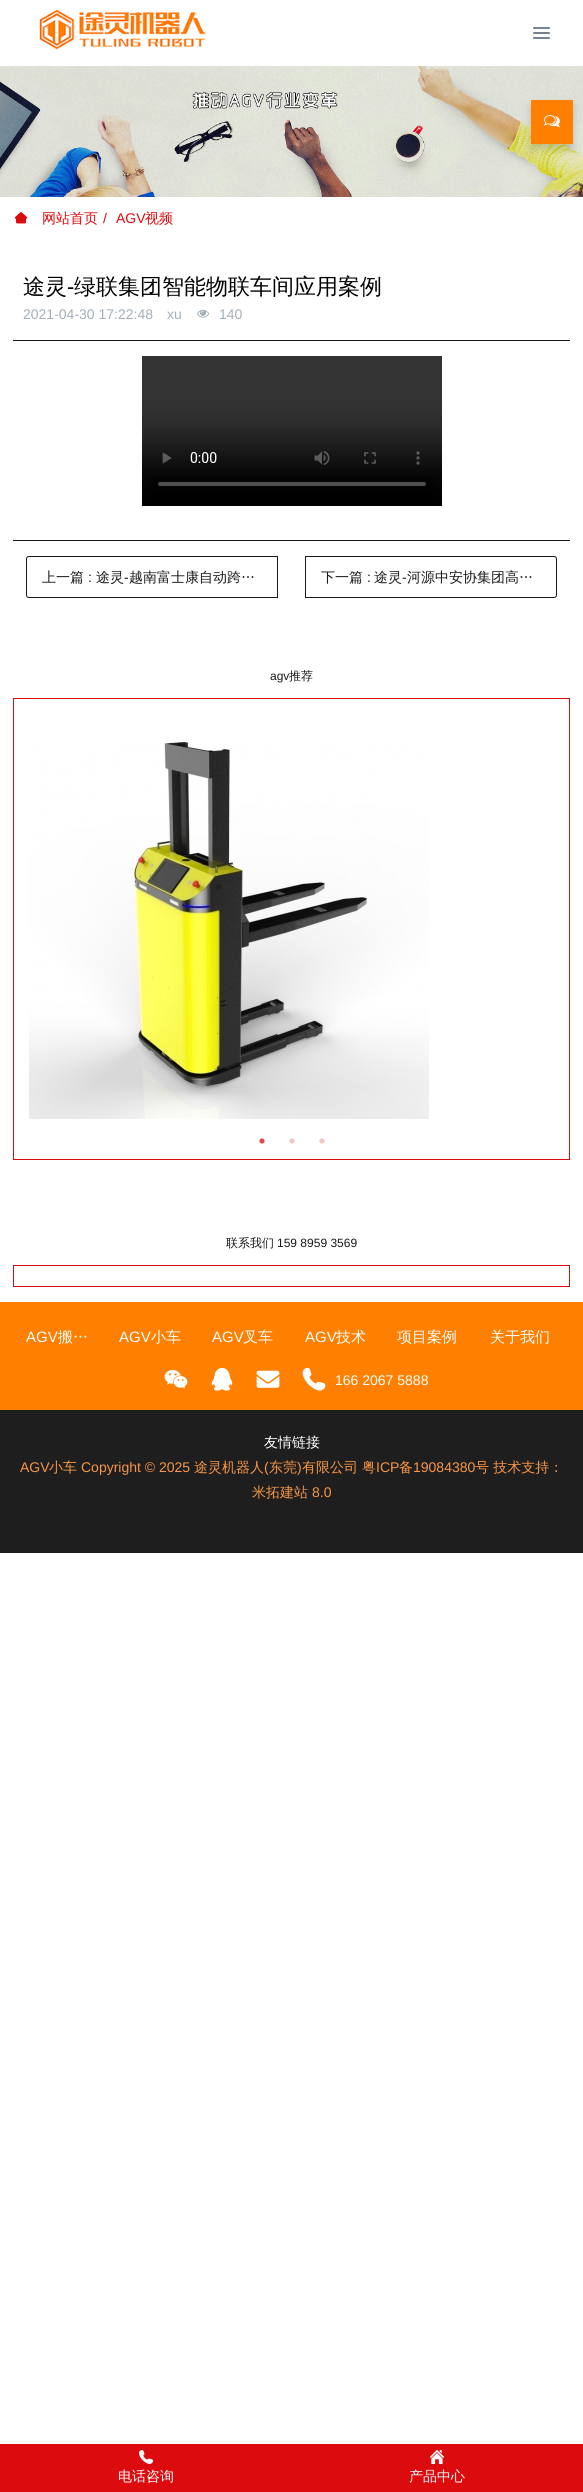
#include <cairo/cairo.h>
#include <math.h>
#include <stddef.h>

typedef struct { double x, y; const char *s; } line_t;
static cairo_t *cr;

static void rgb(unsigned color)
{
	cairo_set_source_rgb(cr, (color >> 16) / 255.0, (color >> 8 & 255) / 255.0, (color & 255) / 255.0);
}

static void rrect(double x, double y, double w, double h, double r)
{
	cairo_new_sub_path(cr);
	cairo_arc(cr, x + w - r, y + h - r, r, 0, M_PI / 2);
	cairo_arc(cr, x + r, y + h - r, r, M_PI / 2, M_PI);
	cairo_arc(cr, x + r, y + r, r, M_PI, 1.5 * M_PI);
	cairo_arc(cr, x + w - r, y + r, r, 1.5 * M_PI, 2 * M_PI);
	cairo_close_path(cr);
}

static void soft_shadow(double x, double y, double w, double h, double r, double blur, double alpha)
{
	cairo_push_group_with_content(cr, CAIRO_CONTENT_ALPHA);
	cairo_set_operator(cr, CAIRO_OPERATOR_SOURCE);
	for (int i = 15; i >= -15 && fmin(w, h) + blur * i / 3 > 0; i -= 2) {
		double e = blur * i / 6;
		cairo_set_source_rgba(cr, 0, 0, 0, alpha * erfc((i - 1) / 8.5) / 2);
		rrect(x - e, y - e, w + 2 * e, h + 2 * e, fmax(0, fmin(r + e + blur * .6, fmin(w, h) / 2 + e)));
		cairo_fill(cr);
	}
	cairo_pattern_t *soft = cairo_pop_group(cr);
	cairo_mask(cr, soft);
	cairo_pattern_destroy(soft);
}

static void image(const char *path, double x, double y, double w, double h)
{
	cairo_surface_t *image = cairo_image_surface_create_from_png(path);
	cairo_save(cr);
	cairo_set_source_surface(cr, image, x, y);
	cairo_rectangle(cr, x, y, w, h);
	cairo_fill(cr);
	cairo_restore(cr);
	cairo_surface_destroy(image);
}

int main(void) {
	cairo_surface_t *surface = cairo_image_surface_create(CAIRO_FORMAT_RGB24, 583, 2492);
	cr = cairo_create(surface);
	cairo_font_options_t *options = cairo_font_options_create();
	cairo_font_options_set_hint_metrics(options, CAIRO_HINT_METRICS_OFF);
	cairo_font_options_set_hint_style(options, CAIRO_HINT_STYLE_NONE);
	cairo_set_font_options(cr, options);
	cairo_set_miter_limit(cr, 4);
	rgb(0xffffff);
	cairo_paint(cr);
	image("img/1.png", 39, 9, 169, 41);
	rgb(0x76838f);
	rrect(533, 27, 17, 2, 1);
	cairo_fill(cr);
	rrect(533, 32, 17, 2, 1);
	cairo_fill(cr);
	rrect(533, 37, 17, 2, 1);
	cairo_fill(cr);
	image("img/2.png", 0, 66, 583, 131);
	rgb(0x040000);
	soft_shadow(531, 105, 42, 44, 0, 4.5, 0.17);
	cairo_rectangle(cr, 532, 101, 40, 42);
	rgb(0xff7f00);
	cairo_stroke(cr);
	cairo_rectangle(cr, 533, 102, 38, 40);
	cairo_fill(cr);
	image("img/3.png", 544, 115, 16, 12);
	image("img/4.png", 14, 212, 14, 12);
	rgb(0x1a1819);
	cairo_rectangle(cr, 13, 340, 557, 1);
	cairo_fill(cr);
	image("img/5.png", 196, 309, 14, 9);
	image("img/6.png", 142, 356, 300, 150);
	cairo_rectangle(cr, 13, 540, 557, 1);
	cairo_fill(cr);
	cairo_new_path(cr);
	cairo_move_to(cr, 29, 556.5);
	cairo_line_to(cr, 277.5, 556.5);
	cairo_line_to(cr, 277.5, 597.5);
	cairo_line_to(cr, 29, 597.5);
	cairo_curve_to(cr, 27.5, 597.5, 26.5, 596.5, 26.5, 595);
	cairo_line_to(cr, 26.5, 559);
	cairo_curve_to(cr, 26.5, 557.5, 27.5, 556.5, 29, 556.5);
	cairo_close_path(cr);
	cairo_set_line_width(cr, 1);
	cairo_stroke(cr);
	cairo_new_path(cr);
	cairo_move_to(cr, 305.5, 556.5);
	cairo_line_to(cr, 554, 556.5);
	cairo_curve_to(cr, 555.5, 556.5, 556.5, 557.5, 556.5, 559);
	cairo_line_to(cr, 556.5, 595);
	cairo_curve_to(cr, 556.5, 596.5, 555.5, 597.5, 554, 597.5);
	cairo_line_to(cr, 305.5, 597.5);
	cairo_close_path(cr);
	cairo_stroke(cr);
	cairo_rectangle(cr, 13.5, 698.5, 556, 461);
	rgb(0xdc0b0d);
	cairo_stroke(cr);
	image("img/7.png", 29, 741, 400, 378);
	image("img/8.png", 259, 1138, 6, 6);
	image("img/9.png", 289, 1138, 6, 6);
	image("img/9.png", 319, 1138, 6, 6);
	cairo_rectangle(cr, 13.5, 1265.5, 556, 21);
	cairo_stroke(cr);
	rgb(0xff7f00);
	cairo_rectangle(cr, 0, 1302, 583, 108);
	cairo_fill(cr);
	image("img/10.png", 164, 1370, 24, 19);
	image("img/11.png", 211, 1367, 22, 24);
	image("img/12.png", 256, 1370, 24, 18);
	image("img/13.png", 302, 1367, 24, 24);
	rgb(0x1e1e1e);
	cairo_rectangle(cr, 0, 1410, 583, 143);
	cairo_fill(cr);
	rgb(0xdc0b0d);
	cairo_rectangle(cr, 0, 2444, 583, 48);
	cairo_fill(cr);
	image("img/14.png", 139, 2450, 14, 14);
	image("img/15.png", 430, 2450, 14, 14);
	cairo_select_font_face(cr, "WenQuanYi Zen Hei Medium", CAIRO_FONT_SLANT_NORMAL, CAIRO_FONT_WEIGHT_NORMAL);
	cairo_set_font_size(cr, 14);
	cairo_move_to(cr, 42, 223);
	cairo_show_text(cr, "网站首页");
	cairo_select_font_face(cr, "Liberation Sans", CAIRO_FONT_SLANT_NORMAL, CAIRO_FONT_WEIGHT_NORMAL);
	cairo_move_to(cr, 103, 223);
	cairo_show_text(cr, "/");
	cairo_move_to(cr, 116, 223);
	cairo_show_text(cr, "AGV");
	cairo_select_font_face(cr, "WenQuanYi Zen Hei Medium", CAIRO_FONT_SLANT_NORMAL, CAIRO_FONT_WEIGHT_NORMAL);
	cairo_move_to(cr, 145, 223);
	cairo_show_text(cr, "视频");
	cairo_set_font_size(cr, 22);
	rgb(0x000000);
	cairo_move_to(cr, 23, 294);
	cairo_show_text(cr, "途灵");
	cairo_select_font_face(cr, "Liberation Sans", CAIRO_FONT_SLANT_NORMAL, CAIRO_FONT_WEIGHT_NORMAL);
	cairo_move_to(cr, 67, 294);
	cairo_show_text(cr, "-");
	cairo_select_font_face(cr, "WenQuanYi Zen Hei Medium", CAIRO_FONT_SLANT_NORMAL, CAIRO_FONT_WEIGHT_NORMAL);
	cairo_move_to(cr, 74, 294);
	cairo_show_text(cr, "绿联集团智能物联车间应用案例");
	cairo_select_font_face(cr, "Liberation Sans", CAIRO_FONT_SLANT_NORMAL, CAIRO_FONT_WEIGHT_NORMAL);
	cairo_set_font_size(cr, 14);
	rgb(0xa3afb7);
	{
		static const line_t items[] = {
			{23, 319, "2021-04-30 17:22:48"},
			{167, 319, "xu"},
			{219, 319, "140"},
		};
		for (size_t i = 0; i < sizeof items / sizeof *items; i++) {
			cairo_move_to(cr, items[i].x, items[i].y);
			cairo_show_text(cr, items[i].s);
		}
	}
	cairo_select_font_face(cr, "WenQuanYi Zen Hei Medium", CAIRO_FONT_SLANT_NORMAL, CAIRO_FONT_WEIGHT_NORMAL);
	rgb(0x1a1819);
	cairo_move_to(cr, 42, 582);
	cairo_show_text(cr, "上一篇");
	cairo_select_font_face(cr, "Liberation Sans", CAIRO_FONT_SLANT_NORMAL, CAIRO_FONT_WEIGHT_NORMAL);
	cairo_move_to(cr, 88, 582);
	cairo_show_text(cr, ":");
	cairo_select_font_face(cr, "WenQuanYi Zen Hei Medium", CAIRO_FONT_SLANT_NORMAL, CAIRO_FONT_WEIGHT_NORMAL);
	cairo_move_to(cr, 96, 582);
	cairo_show_text(cr, "途灵");
	cairo_select_font_face(cr, "Liberation Sans", CAIRO_FONT_SLANT_NORMAL, CAIRO_FONT_WEIGHT_NORMAL);
	cairo_move_to(cr, 124, 582);
	cairo_show_text(cr, "-");
	cairo_select_font_face(cr, "WenQuanYi Zen Hei Medium", CAIRO_FONT_SLANT_NORMAL, CAIRO_FONT_WEIGHT_NORMAL);
	cairo_move_to(cr, 129, 582);
	cairo_show_text(cr, "越南富士康自动跨…");
	cairo_move_to(cr, 321, 582);
	cairo_show_text(cr, "下一篇");
	cairo_select_font_face(cr, "Liberation Sans", CAIRO_FONT_SLANT_NORMAL, CAIRO_FONT_WEIGHT_NORMAL);
	cairo_move_to(cr, 367, 582);
	cairo_show_text(cr, ":");
	cairo_select_font_face(cr, "WenQuanYi Zen Hei Medium", CAIRO_FONT_SLANT_NORMAL, CAIRO_FONT_WEIGHT_NORMAL);
	cairo_move_to(cr, 374, 582);
	cairo_show_text(cr, "途灵");
	cairo_select_font_face(cr, "Liberation Sans", CAIRO_FONT_SLANT_NORMAL, CAIRO_FONT_WEIGHT_NORMAL);
	cairo_move_to(cr, 402, 582);
	cairo_show_text(cr, "-");
	cairo_select_font_face(cr, "WenQuanYi Zen Hei Medium", CAIRO_FONT_SLANT_NORMAL, CAIRO_FONT_WEIGHT_NORMAL);
	cairo_move_to(cr, 407, 582);
	cairo_show_text(cr, "河源中安协集团高…");
	cairo_select_font_face(cr, "Liberation Sans", CAIRO_FONT_SLANT_NORMAL, CAIRO_FONT_WEIGHT_NORMAL);
	cairo_set_font_size(cr, 12);
	cairo_move_to(cr, 270, 680);
	cairo_show_text(cr, "agv");
	cairo_select_font_face(cr, "WenQuanYi Zen Hei Medium", CAIRO_FONT_SLANT_NORMAL, CAIRO_FONT_WEIGHT_NORMAL);
	cairo_move_to(cr, 289, 680);
	cairo_show_text(cr, "推荐");
	cairo_move_to(cr, 226, 1247);
	cairo_show_text(cr, "联系我们");
	cairo_select_font_face(cr, "Liberation Sans", CAIRO_FONT_SLANT_NORMAL, CAIRO_FONT_WEIGHT_NORMAL);
	cairo_move_to(cr, 277, 1247);
	cairo_show_text(cr, "159 8959 3569");
	cairo_set_font_size(cr, 15);
	rgb(0xffffff);
	cairo_move_to(cr, 26, 1342);
	cairo_show_text(cr, "AGV");
	cairo_select_font_face(cr, "WenQuanYi Zen Hei Medium", CAIRO_FONT_SLANT_NORMAL, CAIRO_FONT_WEIGHT_NORMAL);
	cairo_move_to(cr, 58, 1342);
	cairo_show_text(cr, "搬…");
	cairo_select_font_face(cr, "Liberation Sans", CAIRO_FONT_SLANT_NORMAL, CAIRO_FONT_WEIGHT_NORMAL);
	cairo_move_to(cr, 119, 1342);
	cairo_show_text(cr, "AGV");
	cairo_select_font_face(cr, "WenQuanYi Zen Hei Medium", CAIRO_FONT_SLANT_NORMAL, CAIRO_FONT_WEIGHT_NORMAL);
	cairo_move_to(cr, 151, 1342);
	cairo_show_text(cr, "小车");
	cairo_select_font_face(cr, "Liberation Sans", CAIRO_FONT_SLANT_NORMAL, CAIRO_FONT_WEIGHT_NORMAL);
	cairo_move_to(cr, 212, 1342);
	cairo_show_text(cr, "AGV");
	cairo_select_font_face(cr, "WenQuanYi Zen Hei Medium", CAIRO_FONT_SLANT_NORMAL, CAIRO_FONT_WEIGHT_NORMAL);
	cairo_move_to(cr, 243, 1342);
	cairo_show_text(cr, "叉车");
	cairo_select_font_face(cr, "Liberation Sans", CAIRO_FONT_SLANT_NORMAL, CAIRO_FONT_WEIGHT_NORMAL);
	cairo_move_to(cr, 305, 1342);
	cairo_show_text(cr, "AGV");
	cairo_select_font_face(cr, "WenQuanYi Zen Hei Medium", CAIRO_FONT_SLANT_NORMAL, CAIRO_FONT_WEIGHT_NORMAL);
	{
		static const line_t items[] = {
			{336, 1342, "技术"},
			{397, 1342, "项目案例"},
			{490, 1342, "关于我们"},
		};
		for (size_t i = 0; i < sizeof items / sizeof *items; i++) {
			cairo_move_to(cr, items[i].x, items[i].y);
			cairo_show_text(cr, items[i].s);
		}
	}
	cairo_select_font_face(cr, "Liberation Sans", CAIRO_FONT_SLANT_NORMAL, CAIRO_FONT_WEIGHT_NORMAL);
	cairo_set_font_size(cr, 14);
	cairo_move_to(cr, 335, 1385);
	cairo_show_text(cr, "166 2067 5888");
	cairo_select_font_face(cr, "WenQuanYi Zen Hei Medium", CAIRO_FONT_SLANT_NORMAL, CAIRO_FONT_WEIGHT_NORMAL);
	cairo_move_to(cr, 264, 1447);
	cairo_show_text(cr, "友情链接");
	cairo_select_font_face(cr, "Liberation Sans", CAIRO_FONT_SLANT_NORMAL, CAIRO_FONT_WEIGHT_NORMAL);
	rgb(0xf79646);
	cairo_move_to(cr, 20, 1472);
	cairo_show_text(cr, "AGV");
	cairo_select_font_face(cr, "WenQuanYi Zen Hei Medium", CAIRO_FONT_SLANT_NORMAL, CAIRO_FONT_WEIGHT_NORMAL);
	cairo_move_to(cr, 49, 1472);
	cairo_show_text(cr, "小车");
	cairo_select_font_face(cr, "Liberation Sans", CAIRO_FONT_SLANT_NORMAL, CAIRO_FONT_WEIGHT_NORMAL);
	cairo_move_to(cr, 81, 1472);
	cairo_show_text(cr, "Copyright © 2025");
	cairo_select_font_face(cr, "WenQuanYi Zen Hei Medium", CAIRO_FONT_SLANT_NORMAL, CAIRO_FONT_WEIGHT_NORMAL);
	cairo_move_to(cr, 194, 1472);
	cairo_show_text(cr, "途灵机器人");
	cairo_select_font_face(cr, "Liberation Sans", CAIRO_FONT_SLANT_NORMAL, CAIRO_FONT_WEIGHT_NORMAL);
	cairo_move_to(cr, 264, 1472);
	cairo_show_text(cr, "(");
	cairo_select_font_face(cr, "WenQuanYi Zen Hei Medium", CAIRO_FONT_SLANT_NORMAL, CAIRO_FONT_WEIGHT_NORMAL);
	cairo_move_to(cr, 269, 1472);
	cairo_show_text(cr, "东莞");
	cairo_select_font_face(cr, "Liberation Sans", CAIRO_FONT_SLANT_NORMAL, CAIRO_FONT_WEIGHT_NORMAL);
	cairo_move_to(cr, 297, 1472);
	cairo_show_text(cr, ")");
	cairo_select_font_face(cr, "WenQuanYi Zen Hei Medium", CAIRO_FONT_SLANT_NORMAL, CAIRO_FONT_WEIGHT_NORMAL);
	cairo_move_to(cr, 302, 1472);
	cairo_show_text(cr, "有限公司");
	cairo_move_to(cr, 362, 1472);
	cairo_show_text(cr, "粤");
	cairo_select_font_face(cr, "Liberation Sans", CAIRO_FONT_SLANT_NORMAL, CAIRO_FONT_WEIGHT_NORMAL);
	cairo_move_to(cr, 376, 1472);
	cairo_show_text(cr, "ICP");
	cairo_select_font_face(cr, "WenQuanYi Zen Hei Medium", CAIRO_FONT_SLANT_NORMAL, CAIRO_FONT_WEIGHT_NORMAL);
	cairo_move_to(cr, 399, 1472);
	cairo_show_text(cr, "备");
	cairo_select_font_face(cr, "Liberation Sans", CAIRO_FONT_SLANT_NORMAL, CAIRO_FONT_WEIGHT_NORMAL);
	cairo_move_to(cr, 413, 1472);
	cairo_show_text(cr, "19084380");
	cairo_select_font_face(cr, "WenQuanYi Zen Hei Medium", CAIRO_FONT_SLANT_NORMAL, CAIRO_FONT_WEIGHT_NORMAL);
	cairo_move_to(cr, 475, 1472);
	cairo_show_text(cr, "号 技术支持：");
	cairo_move_to(cr, 252, 1497);
	cairo_show_text(cr, "米拓建站");
	cairo_select_font_face(cr, "Liberation Sans", CAIRO_FONT_SLANT_NORMAL, CAIRO_FONT_WEIGHT_NORMAL);
	cairo_move_to(cr, 312, 1497);
	cairo_show_text(cr, "8.0");
	cairo_select_font_face(cr, "WenQuanYi Zen Hei Medium", CAIRO_FONT_SLANT_NORMAL, CAIRO_FONT_WEIGHT_NORMAL);
	rgb(0xffffff);
	cairo_move_to(cr, 118, 2481);
	cairo_show_text(cr, "电话咨询");
	cairo_move_to(cr, 409, 2481);
	cairo_show_text(cr, "产品中心");
	cairo_surface_write_to_png(surface, "page.png");
	cairo_font_options_destroy(options);
	cairo_destroy(cr);
	cairo_surface_destroy(surface);
	return 0;
}
